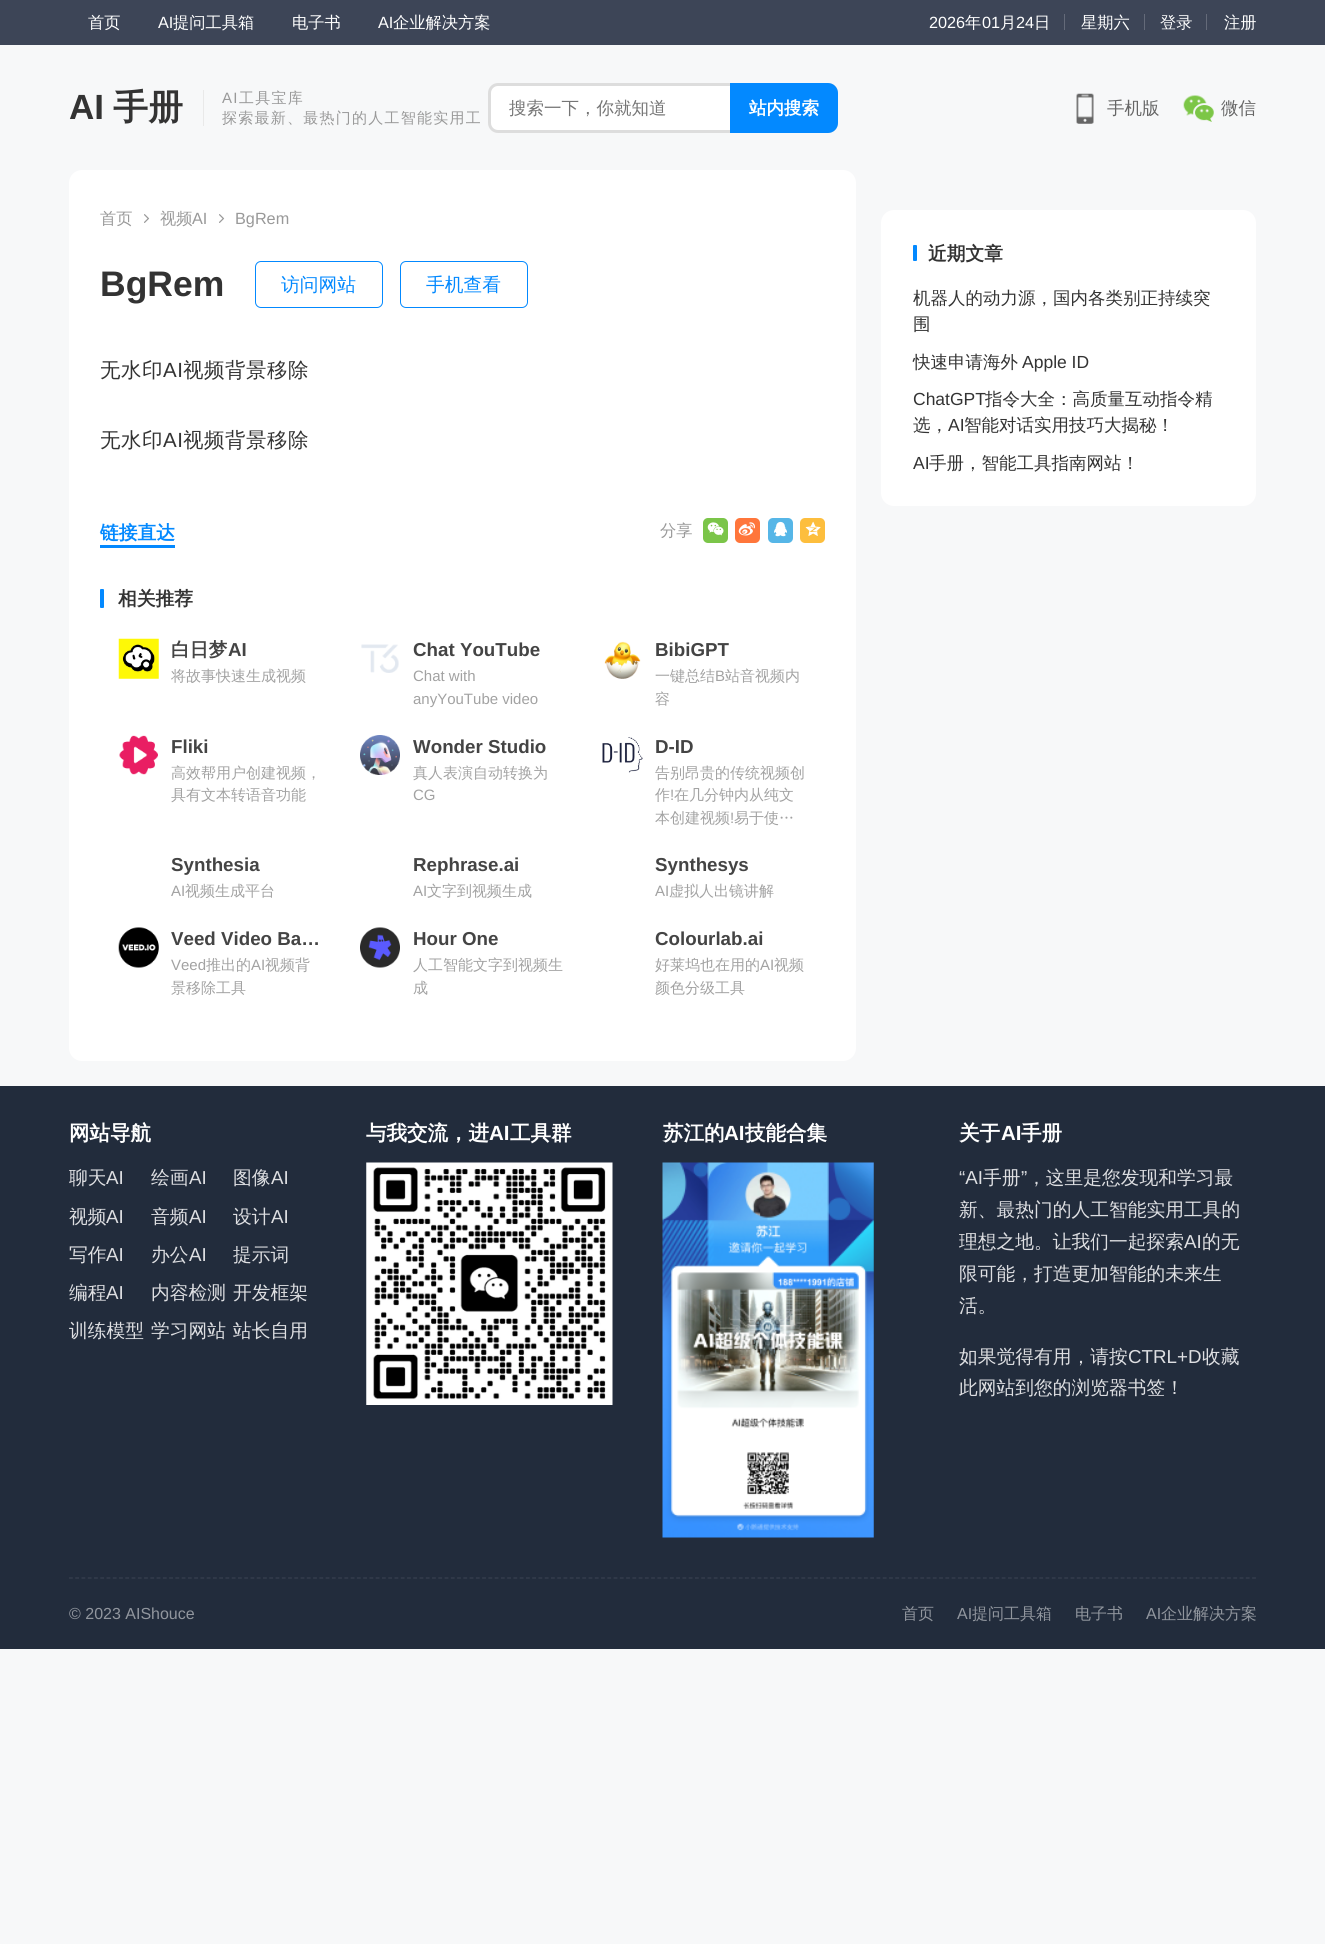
#include <cairo/cairo.h>
#include <math.h>
#include <stddef.h>

typedef struct { double x, y; const char *s; } line_t;
typedef struct { double x, y, w, h; unsigned color; } box_t;
static cairo_t *cr;

static void rgb(unsigned color)
{
	cairo_set_source_rgb(cr, (color >> 16) / 255.0, (color >> 8 & 255) / 255.0, (color & 255) / 255.0);
}

static void tracked(double x, double y, const char *s, double letter, double word)
{
	cairo_move_to(cr, x, y);
	while (*s) {
		char ch[5] = {0};
		int n = 0;
		do ch[n++] = *s++; while ((*s & 0xC0) == 0x80);
		cairo_show_text(cr, ch);
		cairo_rel_move_to(cr, letter + word * (*ch == ' '), 0);
	}
}

static void rrect(double x, double y, double w, double h, double r)
{
	cairo_new_sub_path(cr);
	cairo_arc(cr, x + w - r, y + h - r, r, 0, M_PI / 2);
	cairo_arc(cr, x + r, y + h - r, r, M_PI / 2, M_PI);
	cairo_arc(cr, x + r, y + r, r, M_PI, 1.5 * M_PI);
	cairo_arc(cr, x + w - r, y + r, r, 1.5 * M_PI, 2 * M_PI);
	cairo_close_path(cr);
}

static void image(const char *path, double x, double y, double w, double h)
{
	cairo_surface_t *image = cairo_image_surface_create_from_png(path);
	cairo_save(cr);
	cairo_set_source_surface(cr, image, x, y);
	cairo_rectangle(cr, x, y, w, h);
	cairo_fill(cr);
	cairo_restore(cr);
	cairo_surface_destroy(image);
}

int main(void) {
	cairo_surface_t *surface = cairo_image_surface_create(CAIRO_FORMAT_RGB24, 1325, 1944);
	cr = cairo_create(surface);
	cairo_font_options_t *options = cairo_font_options_create();
	cairo_font_options_set_hint_metrics(options, CAIRO_HINT_METRICS_OFF);
	cairo_font_options_set_hint_style(options, CAIRO_HINT_STYLE_NONE);
	cairo_set_font_options(cr, options);
	cairo_set_miter_limit(cr, 4);
	rgb(0xf7f8f9);
	cairo_paint(cr);
	{
		static const box_t items[] = {
			{0, 0, 1325, 45, 0x3d4557},
			{1064, 14, 1, 16, 0x646a79},
			{1144, 14, 1, 16, 0x646a79},
			{1206, 14, 1, 16, 0x646a79},
			{203, 90, 1, 36, 0xe9e9e9},
		};
		for (size_t i = 0; i < sizeof items / sizeof *items; i++) {
			rgb(items[i].color);
			cairo_rectangle(cr, items[i].x, items[i].y, items[i].w, items[i].h);
			cairo_fill(cr);
		}
	}
	rgb(0xffffff);
	rrect(489.5, 84.5, 347, 47, 8.5);
	cairo_fill_preserve(cr);
	rgb(0xdddddd);
	cairo_set_line_width(cr, 3);
	cairo_stroke(cr);
	rgb(0x0389ff);
	cairo_new_path(cr);
	cairo_move_to(cr, 730, 83);
	cairo_line_to(cr, 828, 83);
	cairo_curve_to(cr, 833.5, 83, 838, 87.5, 838, 93);
	cairo_line_to(cr, 838, 123);
	cairo_curve_to(cr, 838, 128.5, 833.5, 133, 828, 133);
	cairo_line_to(cr, 730, 133);
	cairo_close_path(cr);
	cairo_fill(cr);
	image("img/1.png", 1076, 93, 18, 31);
	image("img/2.png", 1183, 95, 31, 27);
	rgb(0xffffff);
	rrect(69, 170, 787, 891, 13);
	cairo_fill(cr);
	image("img/3.png", 144, 214, 6, 9);
	image("img/3.png", 219, 214, 6, 9);
	rrect(255.5, 261.5, 127, 46, 5.5);
	rgb(0x0389ff);
	cairo_set_line_width(cr, 1);
	cairo_stroke(cr);
	rrect(400.5, 261.5, 127, 46, 5.5);
	cairo_stroke(cr);
	cairo_rectangle(cr, 100, 545, 75, 3);
	cairo_fill(cr);
	rgb(0x7bc549);
	rrect(703, 518, 25, 25, 5);
	cairo_fill(cr);
	image("img/4.png", 707, 522, 17, 14);
	rgb(0xff763b);
	rrect(735, 518, 25, 25, 5);
	cairo_fill(cr);
	image("img/5.png", 738, 522, 17, 14);
	rgb(0x56b6e7);
	rrect(768, 518, 25, 25, 5);
	cairo_fill(cr);
	image("img/6.png", 774, 521, 13, 16);
	rgb(0xfdbe3d);
	rrect(800, 518, 25, 25, 5);
	cairo_fill(cr);
	image("img/7.png", 805, 521, 16, 15);
	rgb(0x0389ff);
	rrect(100, 589, 4, 19, 1);
	cairo_fill(cr);
	image("img/8.png", 118, 638, 41, 41);
	image("img/9.png", 361, 644, 38, 29);
	image("img/10.png", 604, 641, 37, 38);
	image("img/11.png", 119, 735, 39, 40);
	image("img/12.png", 360, 735, 40, 40);
	image("img/13.png", 602, 737, 41, 36);
	image("img/14.png", 118, 927, 41, 41);
	image("img/15.png", 360, 927, 40, 41);
	rgb(0xffffff);
	rrect(881, 210, 375, 296, 13);
	cairo_fill(cr);
	rgb(0x0389ff);
	rrect(913, 245, 4, 16, 1);
	cairo_fill(cr);
	rgb(0x222c3c);
	cairo_rectangle(cr, 0, 1086, 1325, 563);
	cairo_fill(cr);
	image("img/16.png", 366, 1162, 247, 243);
	image("img/17.png", 662, 1162, 212, 376);
	cairo_new_path(cr);
	cairo_move_to(cr, 69, 1578);
	cairo_line_to(cr, 1256, 1578);
	rgb(0x384150);
	cairo_set_line_width(cr, 1.2);
	cairo_set_dash(cr, (double[]){3.75, 2.51}, 2, 0);
	cairo_stroke(cr);
	cairo_select_font_face(cr, "WenQuanYi Zen Hei Medium", CAIRO_FONT_SLANT_NORMAL, CAIRO_FONT_WEIGHT_NORMAL);
	cairo_set_font_size(cr, 16.25);
	rgb(0xffffff);
	cairo_move_to(cr, 88, 28);
	cairo_show_text(cr, "首页");
	cairo_select_font_face(cr, "Liberation Sans", CAIRO_FONT_SLANT_NORMAL, CAIRO_FONT_WEIGHT_NORMAL);
	cairo_move_to(cr, 158, 28);
	cairo_show_text(cr, "AI");
	cairo_select_font_face(cr, "WenQuanYi Zen Hei Medium", CAIRO_FONT_SLANT_NORMAL, CAIRO_FONT_WEIGHT_NORMAL);
	cairo_move_to(cr, 173, 28);
	cairo_show_text(cr, "提问工具箱");
	cairo_move_to(cr, 292, 28);
	cairo_show_text(cr, "电子书");
	cairo_select_font_face(cr, "Liberation Sans", CAIRO_FONT_SLANT_NORMAL, CAIRO_FONT_WEIGHT_NORMAL);
	cairo_move_to(cr, 378, 28);
	cairo_show_text(cr, "AI");
	cairo_select_font_face(cr, "WenQuanYi Zen Hei Medium", CAIRO_FONT_SLANT_NORMAL, CAIRO_FONT_WEIGHT_NORMAL);
	cairo_move_to(cr, 393, 28);
	cairo_show_text(cr, "企业解决方案");
	cairo_select_font_face(cr, "Liberation Sans", CAIRO_FONT_SLANT_NORMAL, CAIRO_FONT_WEIGHT_NORMAL);
	cairo_move_to(cr, 929, 28);
	cairo_show_text(cr, "2026");
	cairo_select_font_face(cr, "WenQuanYi Zen Hei Medium", CAIRO_FONT_SLANT_NORMAL, CAIRO_FONT_WEIGHT_NORMAL);
	cairo_move_to(cr, 965, 28);
	cairo_show_text(cr, "年");
	cairo_select_font_face(cr, "Liberation Sans", CAIRO_FONT_SLANT_NORMAL, CAIRO_FONT_WEIGHT_NORMAL);
	cairo_move_to(cr, 982, 28);
	cairo_show_text(cr, "01");
	cairo_select_font_face(cr, "WenQuanYi Zen Hei Medium", CAIRO_FONT_SLANT_NORMAL, CAIRO_FONT_WEIGHT_NORMAL);
	cairo_move_to(cr, 1000, 28);
	cairo_show_text(cr, "月");
	cairo_select_font_face(cr, "Liberation Sans", CAIRO_FONT_SLANT_NORMAL, CAIRO_FONT_WEIGHT_NORMAL);
	cairo_move_to(cr, 1016, 28);
	cairo_show_text(cr, "24");
	cairo_select_font_face(cr, "WenQuanYi Zen Hei Medium", CAIRO_FONT_SLANT_NORMAL, CAIRO_FONT_WEIGHT_NORMAL);
	{
		static const line_t items[] = {
			{1034, 28, "日"},
			{1081, 28, "星期六"},
			{1160, 28, "登录"},
			{1224, 28, "注册"},
		};
		for (size_t i = 0; i < sizeof items / sizeof *items; i++) {
			cairo_move_to(cr, items[i].x, items[i].y);
			cairo_show_text(cr, items[i].s);
		}
	}
	cairo_select_font_face(cr, "Liberation Sans", CAIRO_FONT_SLANT_NORMAL, CAIRO_FONT_WEIGHT_BOLD);
	cairo_set_font_size(cr, 35);
	rgb(0x333333);
	cairo_move_to(cr, 69, 119);
	cairo_show_text(cr, "AI");
	cairo_select_font_face(cr, "WenQuanYi Zen Hei", CAIRO_FONT_SLANT_NORMAL, CAIRO_FONT_WEIGHT_BOLD);
	cairo_move_to(cr, 113, 119);
	cairo_show_text(cr, "手册");
	cairo_select_font_face(cr, "Liberation Sans", CAIRO_FONT_SLANT_NORMAL, CAIRO_FONT_WEIGHT_NORMAL);
	cairo_set_font_size(cr, 15);
	rgb(0x999999);
	tracked(222, 103, "AI", 1.25, 0);
	cairo_select_font_face(cr, "WenQuanYi Zen Hei Medium", CAIRO_FONT_SLANT_NORMAL, CAIRO_FONT_WEIGHT_NORMAL);
	tracked(239, 103, "工具宝库", 1.25, 0);
	tracked(222, 123, "探索最新、最热门的人工智能实用工", 1.25, 0);
	cairo_set_font_size(cr, 17.5);
	rgb(0x757575);
	cairo_move_to(cr, 509, 114);
	cairo_show_text(cr, "搜索一下，你就知道");
	cairo_select_font_face(cr, "WenQuanYi Zen Hei", CAIRO_FONT_SLANT_NORMAL, CAIRO_FONT_WEIGHT_BOLD);
	rgb(0xffffff);
	cairo_move_to(cr, 749, 114);
	cairo_show_text(cr, "站内搜索");
	cairo_select_font_face(cr, "WenQuanYi Zen Hei Medium", CAIRO_FONT_SLANT_NORMAL, CAIRO_FONT_WEIGHT_NORMAL);
	rgb(0x666666);
	cairo_move_to(cr, 1107, 114);
	cairo_show_text(cr, "手机版");
	cairo_move_to(cr, 1221, 114);
	cairo_show_text(cr, "微信");
	cairo_set_font_size(cr, 16.25);
	rgb(0x999999);
	cairo_move_to(cr, 100, 224);
	cairo_show_text(cr, "首页");
	cairo_move_to(cr, 160, 224);
	cairo_show_text(cr, "视频");
	cairo_select_font_face(cr, "Liberation Sans", CAIRO_FONT_SLANT_NORMAL, CAIRO_FONT_WEIGHT_NORMAL);
	cairo_move_to(cr, 192, 224);
	cairo_show_text(cr, "AI");
	cairo_move_to(cr, 235, 224);
	cairo_show_text(cr, "BgRem");
	cairo_select_font_face(cr, "Liberation Sans", CAIRO_FONT_SLANT_NORMAL, CAIRO_FONT_WEIGHT_BOLD);
	cairo_set_font_size(cr, 35.5);
	rgb(0x333333);
	cairo_move_to(cr, 100, 296);
	cairo_show_text(cr, "BgRem");
	cairo_select_font_face(cr, "WenQuanYi Zen Hei Medium", CAIRO_FONT_SLANT_NORMAL, CAIRO_FONT_WEIGHT_NORMAL);
	cairo_set_font_size(cr, 18.75);
	rgb(0x0389ff);
	cairo_move_to(cr, 281, 291);
	cairo_show_text(cr, "访问网站");
	cairo_move_to(cr, 426, 291);
	cairo_show_text(cr, "手机查看");
	cairo_set_font_size(cr, 20.5);
	rgb(0x333333);
	tracked(100, 377, "无水印", 0.5, 0);
	cairo_select_font_face(cr, "Liberation Sans", CAIRO_FONT_SLANT_NORMAL, CAIRO_FONT_WEIGHT_NORMAL);
	tracked(163, 377, "AI", 0.5, 0);
	cairo_select_font_face(cr, "WenQuanYi Zen Hei Medium", CAIRO_FONT_SLANT_NORMAL, CAIRO_FONT_WEIGHT_NORMAL);
	tracked(183, 377, "视频背景移除", 0.5, 0);
	tracked(100, 447, "无水印", 0.5, 0);
	cairo_select_font_face(cr, "Liberation Sans", CAIRO_FONT_SLANT_NORMAL, CAIRO_FONT_WEIGHT_NORMAL);
	tracked(163, 447, "AI", 0.5, 0);
	cairo_select_font_face(cr, "WenQuanYi Zen Hei Medium", CAIRO_FONT_SLANT_NORMAL, CAIRO_FONT_WEIGHT_NORMAL);
	tracked(183, 447, "视频背景移除", 0.5, 0);
	cairo_select_font_face(cr, "WenQuanYi Zen Hei", CAIRO_FONT_SLANT_NORMAL, CAIRO_FONT_WEIGHT_BOLD);
	cairo_set_font_size(cr, 18.75);
	rgb(0x0389ff);
	cairo_move_to(cr, 100, 539);
	cairo_show_text(cr, "链接直达");
	cairo_select_font_face(cr, "WenQuanYi Zen Hei Medium", CAIRO_FONT_SLANT_NORMAL, CAIRO_FONT_WEIGHT_NORMAL);
	cairo_set_font_size(cr, 16.25);
	rgb(0x999999);
	cairo_move_to(cr, 660, 536);
	cairo_show_text(cr, "分享");
	cairo_select_font_face(cr, "WenQuanYi Zen Hei", CAIRO_FONT_SLANT_NORMAL, CAIRO_FONT_WEIGHT_BOLD);
	cairo_set_font_size(cr, 18.75);
	rgb(0x333333);
	cairo_move_to(cr, 118, 605);
	cairo_show_text(cr, "相关推荐");
	rgb(0x444444);
	cairo_move_to(cr, 171, 656);
	cairo_show_text(cr, "白日梦");
	cairo_select_font_face(cr, "Liberation Sans", CAIRO_FONT_SLANT_NORMAL, CAIRO_FONT_WEIGHT_BOLD);
	cairo_move_to(cr, 228, 656);
	cairo_show_text(cr, "AI");
	cairo_select_font_face(cr, "WenQuanYi Zen Hei Medium", CAIRO_FONT_SLANT_NORMAL, CAIRO_FONT_WEIGHT_NORMAL);
	cairo_set_font_size(cr, 15);
	rgb(0xa2a2a2);
	cairo_move_to(cr, 171, 681);
	cairo_show_text(cr, "将故事快速生成视频");
	cairo_select_font_face(cr, "Liberation Sans", CAIRO_FONT_SLANT_NORMAL, CAIRO_FONT_WEIGHT_BOLD);
	cairo_set_font_size(cr, 18.75);
	rgb(0x444444);
	cairo_move_to(cr, 413, 656);
	cairo_show_text(cr, "Chat YouTube");
	cairo_select_font_face(cr, "Liberation Sans", CAIRO_FONT_SLANT_NORMAL, CAIRO_FONT_WEIGHT_NORMAL);
	cairo_set_font_size(cr, 15);
	rgb(0xa2a2a2);
	cairo_move_to(cr, 413, 681);
	cairo_show_text(cr, "Chat with");
	cairo_move_to(cr, 413, 704);
	cairo_show_text(cr, "anyYouTube video");
	cairo_select_font_face(cr, "Liberation Sans", CAIRO_FONT_SLANT_NORMAL, CAIRO_FONT_WEIGHT_BOLD);
	cairo_set_font_size(cr, 18.75);
	rgb(0x444444);
	cairo_move_to(cr, 655, 656);
	cairo_show_text(cr, "BibiGPT");
	cairo_select_font_face(cr, "WenQuanYi Zen Hei Medium", CAIRO_FONT_SLANT_NORMAL, CAIRO_FONT_WEIGHT_NORMAL);
	cairo_set_font_size(cr, 15);
	rgb(0xa2a2a2);
	cairo_move_to(cr, 655, 681);
	cairo_show_text(cr, "一键总结");
	cairo_select_font_face(cr, "Liberation Sans", CAIRO_FONT_SLANT_NORMAL, CAIRO_FONT_WEIGHT_NORMAL);
	cairo_move_to(cr, 715, 681);
	cairo_show_text(cr, "B");
	cairo_select_font_face(cr, "WenQuanYi Zen Hei Medium", CAIRO_FONT_SLANT_NORMAL, CAIRO_FONT_WEIGHT_NORMAL);
	cairo_move_to(cr, 725, 681);
	cairo_show_text(cr, "站音视频内");
	cairo_move_to(cr, 655, 704);
	cairo_show_text(cr, "容");
	cairo_select_font_face(cr, "Liberation Sans", CAIRO_FONT_SLANT_NORMAL, CAIRO_FONT_WEIGHT_BOLD);
	cairo_set_font_size(cr, 18.75);
	rgb(0x444444);
	cairo_move_to(cr, 171, 753);
	cairo_show_text(cr, "Fliki");
	cairo_select_font_face(cr, "WenQuanYi Zen Hei Medium", CAIRO_FONT_SLANT_NORMAL, CAIRO_FONT_WEIGHT_NORMAL);
	cairo_set_font_size(cr, 15);
	rgb(0xa2a2a2);
	cairo_move_to(cr, 171, 778);
	cairo_show_text(cr, "高效帮用户创建视频，");
	cairo_move_to(cr, 171, 800);
	cairo_show_text(cr, "具有文本转语音功能");
	cairo_select_font_face(cr, "Liberation Sans", CAIRO_FONT_SLANT_NORMAL, CAIRO_FONT_WEIGHT_BOLD);
	cairo_set_font_size(cr, 18.75);
	rgb(0x444444);
	cairo_move_to(cr, 413, 753);
	cairo_show_text(cr, "Wonder Studio");
	cairo_select_font_face(cr, "WenQuanYi Zen Hei Medium", CAIRO_FONT_SLANT_NORMAL, CAIRO_FONT_WEIGHT_NORMAL);
	cairo_set_font_size(cr, 15);
	rgb(0xa2a2a2);
	cairo_move_to(cr, 413, 778);
	cairo_show_text(cr, "真人表演自动转换为");
	cairo_select_font_face(cr, "Liberation Sans", CAIRO_FONT_SLANT_NORMAL, CAIRO_FONT_WEIGHT_NORMAL);
	cairo_move_to(cr, 413, 800);
	cairo_show_text(cr, "CG");
	cairo_select_font_face(cr, "Liberation Sans", CAIRO_FONT_SLANT_NORMAL, CAIRO_FONT_WEIGHT_BOLD);
	cairo_set_font_size(cr, 18.75);
	rgb(0x444444);
	cairo_move_to(cr, 655, 753);
	cairo_show_text(cr, "D-ID");
	cairo_select_font_face(cr, "WenQuanYi Zen Hei Medium", CAIRO_FONT_SLANT_NORMAL, CAIRO_FONT_WEIGHT_NORMAL);
	cairo_set_font_size(cr, 15);
	rgb(0xa2a2a2);
	cairo_move_to(cr, 655, 778);
	cairo_show_text(cr, "告别昂贵的传统视频创");
	cairo_move_to(cr, 655, 800);
	cairo_show_text(cr, "作");
	cairo_select_font_face(cr, "Liberation Sans", CAIRO_FONT_SLANT_NORMAL, CAIRO_FONT_WEIGHT_NORMAL);
	cairo_move_to(cr, 670, 800);
	cairo_show_text(cr, "!");
	cairo_select_font_face(cr, "WenQuanYi Zen Hei Medium", CAIRO_FONT_SLANT_NORMAL, CAIRO_FONT_WEIGHT_NORMAL);
	cairo_move_to(cr, 674, 800);
	cairo_show_text(cr, "在几分钟内从纯文");
	cairo_move_to(cr, 655, 823);
	cairo_show_text(cr, "本创建视频");
	cairo_select_font_face(cr, "Liberation Sans", CAIRO_FONT_SLANT_NORMAL, CAIRO_FONT_WEIGHT_NORMAL);
	cairo_move_to(cr, 730, 823);
	cairo_show_text(cr, "!");
	cairo_select_font_face(cr, "WenQuanYi Zen Hei Medium", CAIRO_FONT_SLANT_NORMAL, CAIRO_FONT_WEIGHT_NORMAL);
	cairo_move_to(cr, 734, 823);
	cairo_show_text(cr, "易于使…");
	cairo_select_font_face(cr, "Liberation Sans", CAIRO_FONT_SLANT_NORMAL, CAIRO_FONT_WEIGHT_BOLD);
	cairo_set_font_size(cr, 18.75);
	rgb(0x444444);
	cairo_move_to(cr, 171, 871);
	cairo_show_text(cr, "Synthesia");
	cairo_select_font_face(cr, "Liberation Sans", CAIRO_FONT_SLANT_NORMAL, CAIRO_FONT_WEIGHT_NORMAL);
	cairo_set_font_size(cr, 15);
	rgb(0xa2a2a2);
	cairo_move_to(cr, 171, 896);
	cairo_show_text(cr, "AI");
	cairo_select_font_face(cr, "WenQuanYi Zen Hei Medium", CAIRO_FONT_SLANT_NORMAL, CAIRO_FONT_WEIGHT_NORMAL);
	cairo_move_to(cr, 185, 896);
	cairo_show_text(cr, "视频生成平台");
	cairo_select_font_face(cr, "Liberation Sans", CAIRO_FONT_SLANT_NORMAL, CAIRO_FONT_WEIGHT_BOLD);
	cairo_set_font_size(cr, 18.75);
	rgb(0x444444);
	cairo_move_to(cr, 413, 871);
	cairo_show_text(cr, "Rephrase.ai");
	cairo_select_font_face(cr, "Liberation Sans", CAIRO_FONT_SLANT_NORMAL, CAIRO_FONT_WEIGHT_NORMAL);
	cairo_set_font_size(cr, 15);
	rgb(0xa2a2a2);
	cairo_move_to(cr, 413, 896);
	cairo_show_text(cr, "AI");
	cairo_select_font_face(cr, "WenQuanYi Zen Hei Medium", CAIRO_FONT_SLANT_NORMAL, CAIRO_FONT_WEIGHT_NORMAL);
	cairo_move_to(cr, 427, 896);
	cairo_show_text(cr, "文字到视频生成");
	cairo_select_font_face(cr, "Liberation Sans", CAIRO_FONT_SLANT_NORMAL, CAIRO_FONT_WEIGHT_BOLD);
	cairo_set_font_size(cr, 18.75);
	rgb(0x444444);
	cairo_move_to(cr, 655, 871);
	cairo_show_text(cr, "Synthesys");
	cairo_select_font_face(cr, "Liberation Sans", CAIRO_FONT_SLANT_NORMAL, CAIRO_FONT_WEIGHT_NORMAL);
	cairo_set_font_size(cr, 15);
	rgb(0xa2a2a2);
	cairo_move_to(cr, 655, 896);
	cairo_show_text(cr, "AI");
	cairo_select_font_face(cr, "WenQuanYi Zen Hei Medium", CAIRO_FONT_SLANT_NORMAL, CAIRO_FONT_WEIGHT_NORMAL);
	cairo_move_to(cr, 669, 896);
	cairo_show_text(cr, "虚拟人出镜讲解");
	cairo_select_font_face(cr, "Liberation Sans", CAIRO_FONT_SLANT_NORMAL, CAIRO_FONT_WEIGHT_BOLD);
	cairo_set_font_size(cr, 18.75);
	rgb(0x444444);
	cairo_move_to(cr, 171, 945);
	cairo_show_text(cr, "Veed Video Ba…");
	cairo_select_font_face(cr, "Liberation Sans", CAIRO_FONT_SLANT_NORMAL, CAIRO_FONT_WEIGHT_NORMAL);
	cairo_set_font_size(cr, 15);
	rgb(0xa2a2a2);
	cairo_move_to(cr, 171, 970);
	cairo_show_text(cr, "Veed");
	cairo_select_font_face(cr, "WenQuanYi Zen Hei Medium", CAIRO_FONT_SLANT_NORMAL, CAIRO_FONT_WEIGHT_NORMAL);
	cairo_move_to(cr, 206, 970);
	cairo_show_text(cr, "推出的");
	cairo_select_font_face(cr, "Liberation Sans", CAIRO_FONT_SLANT_NORMAL, CAIRO_FONT_WEIGHT_NORMAL);
	cairo_move_to(cr, 251, 970);
	cairo_show_text(cr, "AI");
	cairo_select_font_face(cr, "WenQuanYi Zen Hei Medium", CAIRO_FONT_SLANT_NORMAL, CAIRO_FONT_WEIGHT_NORMAL);
	cairo_move_to(cr, 265, 970);
	cairo_show_text(cr, "视频背");
	cairo_move_to(cr, 171, 993);
	cairo_show_text(cr, "景移除工具");
	cairo_select_font_face(cr, "Liberation Sans", CAIRO_FONT_SLANT_NORMAL, CAIRO_FONT_WEIGHT_BOLD);
	cairo_set_font_size(cr, 18.75);
	rgb(0x444444);
	cairo_move_to(cr, 413, 945);
	cairo_show_text(cr, "Hour One");
	cairo_select_font_face(cr, "WenQuanYi Zen Hei Medium", CAIRO_FONT_SLANT_NORMAL, CAIRO_FONT_WEIGHT_NORMAL);
	cairo_set_font_size(cr, 15);
	rgb(0xa2a2a2);
	cairo_move_to(cr, 413, 970);
	cairo_show_text(cr, "人工智能文字到视频生");
	cairo_move_to(cr, 413, 993);
	cairo_show_text(cr, "成");
	cairo_select_font_face(cr, "Liberation Sans", CAIRO_FONT_SLANT_NORMAL, CAIRO_FONT_WEIGHT_BOLD);
	cairo_set_font_size(cr, 18.75);
	rgb(0x444444);
	cairo_move_to(cr, 655, 945);
	cairo_show_text(cr, "Colourlab.ai");
	cairo_select_font_face(cr, "WenQuanYi Zen Hei Medium", CAIRO_FONT_SLANT_NORMAL, CAIRO_FONT_WEIGHT_NORMAL);
	cairo_set_font_size(cr, 15);
	rgb(0xa2a2a2);
	cairo_move_to(cr, 655, 970);
	cairo_show_text(cr, "好莱坞也在用的");
	cairo_select_font_face(cr, "Liberation Sans", CAIRO_FONT_SLANT_NORMAL, CAIRO_FONT_WEIGHT_NORMAL);
	cairo_move_to(cr, 760, 970);
	cairo_show_text(cr, "AI");
	cairo_select_font_face(cr, "WenQuanYi Zen Hei Medium", CAIRO_FONT_SLANT_NORMAL, CAIRO_FONT_WEIGHT_NORMAL);
	cairo_move_to(cr, 774, 970);
	cairo_show_text(cr, "视频");
	cairo_move_to(cr, 655, 993);
	cairo_show_text(cr, "颜色分级工具");
	cairo_select_font_face(cr, "WenQuanYi Zen Hei", CAIRO_FONT_SLANT_NORMAL, CAIRO_FONT_WEIGHT_BOLD);
	cairo_set_font_size(cr, 18.75);
	rgb(0x333333);
	cairo_move_to(cr, 928, 260);
	cairo_show_text(cr, "近期文章");
	cairo_select_font_face(cr, "WenQuanYi Zen Hei Medium", CAIRO_FONT_SLANT_NORMAL, CAIRO_FONT_WEIGHT_NORMAL);
	cairo_set_font_size(cr, 17.5);
	{
		static const line_t items[] = {
			{913, 304, "机器人的动力源，国内各类别正持续突"},
			{913, 330, "围"},
			{913, 368, "快速申请海外"},
		};
		for (size_t i = 0; i < sizeof items / sizeof *items; i++) {
			cairo_move_to(cr, items[i].x, items[i].y);
			cairo_show_text(cr, items[i].s);
		}
	}
	cairo_select_font_face(cr, "Liberation Sans", CAIRO_FONT_SLANT_NORMAL, CAIRO_FONT_WEIGHT_NORMAL);
	cairo_move_to(cr, 1022, 368);
	cairo_show_text(cr, "Apple ID");
	cairo_move_to(cr, 913, 405);
	cairo_show_text(cr, "ChatGPT");
	cairo_select_font_face(cr, "WenQuanYi Zen Hei Medium", CAIRO_FONT_SLANT_NORMAL, CAIRO_FONT_WEIGHT_NORMAL);
	cairo_move_to(cr, 985, 405);
	cairo_show_text(cr, "指令大全：高质量互动指令精");
	cairo_move_to(cr, 913, 431);
	cairo_show_text(cr, "选，");
	cairo_select_font_face(cr, "Liberation Sans", CAIRO_FONT_SLANT_NORMAL, CAIRO_FONT_WEIGHT_NORMAL);
	cairo_move_to(cr, 948, 431);
	cairo_show_text(cr, "AI");
	cairo_select_font_face(cr, "WenQuanYi Zen Hei Medium", CAIRO_FONT_SLANT_NORMAL, CAIRO_FONT_WEIGHT_NORMAL);
	cairo_move_to(cr, 964, 431);
	cairo_show_text(cr, "智能对话实用技巧大揭秘！");
	cairo_select_font_face(cr, "Liberation Sans", CAIRO_FONT_SLANT_NORMAL, CAIRO_FONT_WEIGHT_NORMAL);
	cairo_move_to(cr, 913, 469);
	cairo_show_text(cr, "AI");
	cairo_select_font_face(cr, "WenQuanYi Zen Hei Medium", CAIRO_FONT_SLANT_NORMAL, CAIRO_FONT_WEIGHT_NORMAL);
	cairo_move_to(cr, 929, 469);
	cairo_show_text(cr, "手册，智能工具指南网站！");
	cairo_select_font_face(cr, "WenQuanYi Zen Hei", CAIRO_FONT_SLANT_NORMAL, CAIRO_FONT_WEIGHT_BOLD);
	cairo_set_font_size(cr, 20.5);
	rgb(0xffffff);
	cairo_move_to(cr, 69, 1140);
	cairo_show_text(cr, "网站导航");
	cairo_select_font_face(cr, "WenQuanYi Zen Hei Medium", CAIRO_FONT_SLANT_NORMAL, CAIRO_FONT_WEIGHT_NORMAL);
	cairo_set_font_size(cr, 18.75);
	rgb(0xdedfe2);
	cairo_move_to(cr, 69, 1184);
	cairo_show_text(cr, "聊天");
	cairo_select_font_face(cr, "Liberation Sans", CAIRO_FONT_SLANT_NORMAL, CAIRO_FONT_WEIGHT_NORMAL);
	cairo_move_to(cr, 106, 1184);
	cairo_show_text(cr, "AI");
	cairo_select_font_face(cr, "WenQuanYi Zen Hei Medium", CAIRO_FONT_SLANT_NORMAL, CAIRO_FONT_WEIGHT_NORMAL);
	cairo_move_to(cr, 151, 1184);
	cairo_show_text(cr, "绘画");
	cairo_select_font_face(cr, "Liberation Sans", CAIRO_FONT_SLANT_NORMAL, CAIRO_FONT_WEIGHT_NORMAL);
	cairo_move_to(cr, 189, 1184);
	cairo_show_text(cr, "AI");
	cairo_select_font_face(cr, "WenQuanYi Zen Hei Medium", CAIRO_FONT_SLANT_NORMAL, CAIRO_FONT_WEIGHT_NORMAL);
	cairo_move_to(cr, 233, 1184);
	cairo_show_text(cr, "图像");
	cairo_select_font_face(cr, "Liberation Sans", CAIRO_FONT_SLANT_NORMAL, CAIRO_FONT_WEIGHT_NORMAL);
	cairo_move_to(cr, 271, 1184);
	cairo_show_text(cr, "AI");
	cairo_select_font_face(cr, "WenQuanYi Zen Hei Medium", CAIRO_FONT_SLANT_NORMAL, CAIRO_FONT_WEIGHT_NORMAL);
	cairo_move_to(cr, 69, 1223);
	cairo_show_text(cr, "视频");
	cairo_select_font_face(cr, "Liberation Sans", CAIRO_FONT_SLANT_NORMAL, CAIRO_FONT_WEIGHT_NORMAL);
	cairo_move_to(cr, 106, 1223);
	cairo_show_text(cr, "AI");
	cairo_select_font_face(cr, "WenQuanYi Zen Hei Medium", CAIRO_FONT_SLANT_NORMAL, CAIRO_FONT_WEIGHT_NORMAL);
	cairo_move_to(cr, 151, 1223);
	cairo_show_text(cr, "音频");
	cairo_select_font_face(cr, "Liberation Sans", CAIRO_FONT_SLANT_NORMAL, CAIRO_FONT_WEIGHT_NORMAL);
	cairo_move_to(cr, 189, 1223);
	cairo_show_text(cr, "AI");
	cairo_select_font_face(cr, "WenQuanYi Zen Hei Medium", CAIRO_FONT_SLANT_NORMAL, CAIRO_FONT_WEIGHT_NORMAL);
	cairo_move_to(cr, 233, 1223);
	cairo_show_text(cr, "设计");
	cairo_select_font_face(cr, "Liberation Sans", CAIRO_FONT_SLANT_NORMAL, CAIRO_FONT_WEIGHT_NORMAL);
	cairo_move_to(cr, 271, 1223);
	cairo_show_text(cr, "AI");
	cairo_select_font_face(cr, "WenQuanYi Zen Hei Medium", CAIRO_FONT_SLANT_NORMAL, CAIRO_FONT_WEIGHT_NORMAL);
	cairo_move_to(cr, 69, 1261);
	cairo_show_text(cr, "写作");
	cairo_select_font_face(cr, "Liberation Sans", CAIRO_FONT_SLANT_NORMAL, CAIRO_FONT_WEIGHT_NORMAL);
	cairo_move_to(cr, 106, 1261);
	cairo_show_text(cr, "AI");
	cairo_select_font_face(cr, "WenQuanYi Zen Hei Medium", CAIRO_FONT_SLANT_NORMAL, CAIRO_FONT_WEIGHT_NORMAL);
	cairo_move_to(cr, 151, 1261);
	cairo_show_text(cr, "办公");
	cairo_select_font_face(cr, "Liberation Sans", CAIRO_FONT_SLANT_NORMAL, CAIRO_FONT_WEIGHT_NORMAL);
	cairo_move_to(cr, 189, 1261);
	cairo_show_text(cr, "AI");
	cairo_select_font_face(cr, "WenQuanYi Zen Hei Medium", CAIRO_FONT_SLANT_NORMAL, CAIRO_FONT_WEIGHT_NORMAL);
	cairo_move_to(cr, 233, 1261);
	cairo_show_text(cr, "提示词");
	cairo_move_to(cr, 69, 1299);
	cairo_show_text(cr, "编程");
	cairo_select_font_face(cr, "Liberation Sans", CAIRO_FONT_SLANT_NORMAL, CAIRO_FONT_WEIGHT_NORMAL);
	cairo_move_to(cr, 106, 1299);
	cairo_show_text(cr, "AI");
	cairo_select_font_face(cr, "WenQuanYi Zen Hei Medium", CAIRO_FONT_SLANT_NORMAL, CAIRO_FONT_WEIGHT_NORMAL);
	{
		static const line_t items[] = {
			{151, 1299, "内容检测"},
			{233, 1299, "开发框架"},
			{69, 1337, "训练模型"},
			{151, 1337, "学习网站"},
			{233, 1337, "站长自用"},
		};
		for (size_t i = 0; i < sizeof items / sizeof *items; i++) {
			cairo_move_to(cr, items[i].x, items[i].y);
			cairo_show_text(cr, items[i].s);
		}
	}
	cairo_select_font_face(cr, "WenQuanYi Zen Hei", CAIRO_FONT_SLANT_NORMAL, CAIRO_FONT_WEIGHT_BOLD);
	cairo_set_font_size(cr, 20.5);
	rgb(0xffffff);
	cairo_move_to(cr, 366, 1140);
	cairo_show_text(cr, "与我交流，进");
	cairo_select_font_face(cr, "Liberation Sans", CAIRO_FONT_SLANT_NORMAL, CAIRO_FONT_WEIGHT_BOLD);
	cairo_move_to(cr, 489, 1140);
	cairo_show_text(cr, "AI");
	cairo_select_font_face(cr, "WenQuanYi Zen Hei", CAIRO_FONT_SLANT_NORMAL, CAIRO_FONT_WEIGHT_BOLD);
	cairo_move_to(cr, 510, 1140);
	cairo_show_text(cr, "工具群");
	cairo_move_to(cr, 663, 1140);
	cairo_show_text(cr, "苏江的");
	cairo_select_font_face(cr, "Liberation Sans", CAIRO_FONT_SLANT_NORMAL, CAIRO_FONT_WEIGHT_BOLD);
	cairo_move_to(cr, 724, 1140);
	cairo_show_text(cr, "AI");
	cairo_select_font_face(cr, "WenQuanYi Zen Hei", CAIRO_FONT_SLANT_NORMAL, CAIRO_FONT_WEIGHT_BOLD);
	cairo_move_to(cr, 745, 1140);
	cairo_show_text(cr, "技能合集");
	cairo_move_to(cr, 959, 1140);
	cairo_show_text(cr, "关于");
	cairo_select_font_face(cr, "Liberation Sans", CAIRO_FONT_SLANT_NORMAL, CAIRO_FONT_WEIGHT_BOLD);
	cairo_move_to(cr, 1001, 1140);
	cairo_show_text(cr, "AI");
	cairo_select_font_face(cr, "WenQuanYi Zen Hei", CAIRO_FONT_SLANT_NORMAL, CAIRO_FONT_WEIGHT_BOLD);
	cairo_move_to(cr, 1021, 1140);
	cairo_show_text(cr, "手册");
	cairo_select_font_face(cr, "Liberation Sans", CAIRO_FONT_SLANT_NORMAL, CAIRO_FONT_WEIGHT_NORMAL);
	cairo_set_font_size(cr, 18.75);
	rgb(0xdedfe2);
	cairo_move_to(cr, 959, 1184);
	cairo_show_text(cr, "“AI");
	cairo_select_font_face(cr, "WenQuanYi Zen Hei Medium", CAIRO_FONT_SLANT_NORMAL, CAIRO_FONT_WEIGHT_NORMAL);
	cairo_move_to(cr, 983, 1184);
	cairo_show_text(cr, "手册");
	cairo_select_font_face(cr, "Liberation Sans", CAIRO_FONT_SLANT_NORMAL, CAIRO_FONT_WEIGHT_NORMAL);
	cairo_move_to(cr, 1021, 1184);
	cairo_show_text(cr, "”");
	cairo_select_font_face(cr, "WenQuanYi Zen Hei Medium", CAIRO_FONT_SLANT_NORMAL, CAIRO_FONT_WEIGHT_NORMAL);
	{
		static const line_t items[] = {
			{1027, 1184, "，这里是您发现和学习最"},
			{959, 1216, "新、最热门的人工智能实用工具的"},
			{959, 1248, "理想之地。让我们一起探索"},
		};
		for (size_t i = 0; i < sizeof items / sizeof *items; i++) {
			cairo_move_to(cr, items[i].x, items[i].y);
			cairo_show_text(cr, items[i].s);
		}
	}
	cairo_select_font_face(cr, "Liberation Sans", CAIRO_FONT_SLANT_NORMAL, CAIRO_FONT_WEIGHT_NORMAL);
	cairo_move_to(cr, 1184, 1248);
	cairo_show_text(cr, "AI");
	cairo_select_font_face(cr, "WenQuanYi Zen Hei Medium", CAIRO_FONT_SLANT_NORMAL, CAIRO_FONT_WEIGHT_NORMAL);
	{
		static const line_t items[] = {
			{1202, 1248, "的无"},
			{959, 1280, "限可能，打造更加智能的未来生"},
			{959, 1312, "活。"},
			{959, 1363, "如果觉得有用，请按"},
		};
		for (size_t i = 0; i < sizeof items / sizeof *items; i++) {
			cairo_move_to(cr, items[i].x, items[i].y);
			cairo_show_text(cr, items[i].s);
		}
	}
	cairo_select_font_face(cr, "Liberation Sans", CAIRO_FONT_SLANT_NORMAL, CAIRO_FONT_WEIGHT_NORMAL);
	cairo_move_to(cr, 1128, 1363);
	cairo_show_text(cr, "CTRL+D");
	cairo_select_font_face(cr, "WenQuanYi Zen Hei Medium", CAIRO_FONT_SLANT_NORMAL, CAIRO_FONT_WEIGHT_NORMAL);
	cairo_move_to(cr, 1202, 1363);
	cairo_show_text(cr, "收藏");
	cairo_move_to(cr, 959, 1394);
	cairo_show_text(cr, "此网站到您的浏览器书签！");
	cairo_select_font_face(cr, "Liberation Sans", CAIRO_FONT_SLANT_NORMAL, CAIRO_FONT_WEIGHT_NORMAL);
	cairo_set_font_size(cr, 16);
	rgb(0x91969e);
	cairo_move_to(cr, 69, 1619);
	cairo_show_text(cr, "© 2023 AIShouce");
	cairo_select_font_face(cr, "WenQuanYi Zen Hei Medium", CAIRO_FONT_SLANT_NORMAL, CAIRO_FONT_WEIGHT_NORMAL);
	cairo_move_to(cr, 902, 1619);
	cairo_show_text(cr, "首页");
	cairo_select_font_face(cr, "Liberation Sans", CAIRO_FONT_SLANT_NORMAL, CAIRO_FONT_WEIGHT_NORMAL);
	cairo_move_to(cr, 957, 1619);
	cairo_show_text(cr, "AI");
	cairo_select_font_face(cr, "WenQuanYi Zen Hei Medium", CAIRO_FONT_SLANT_NORMAL, CAIRO_FONT_WEIGHT_NORMAL);
	cairo_move_to(cr, 972, 1619);
	cairo_show_text(cr, "提问工具箱");
	cairo_move_to(cr, 1075, 1619);
	cairo_show_text(cr, "电子书");
	cairo_select_font_face(cr, "Liberation Sans", CAIRO_FONT_SLANT_NORMAL, CAIRO_FONT_WEIGHT_NORMAL);
	cairo_move_to(cr, 1146, 1619);
	cairo_show_text(cr, "AI");
	cairo_select_font_face(cr, "WenQuanYi Zen Hei Medium", CAIRO_FONT_SLANT_NORMAL, CAIRO_FONT_WEIGHT_NORMAL);
	cairo_move_to(cr, 1161, 1619);
	cairo_show_text(cr, "企业解决方案");
	cairo_surface_write_to_png(surface, "page.png");
	cairo_font_options_destroy(options);
	cairo_destroy(cr);
	cairo_surface_destroy(surface);
	return 0;
}
